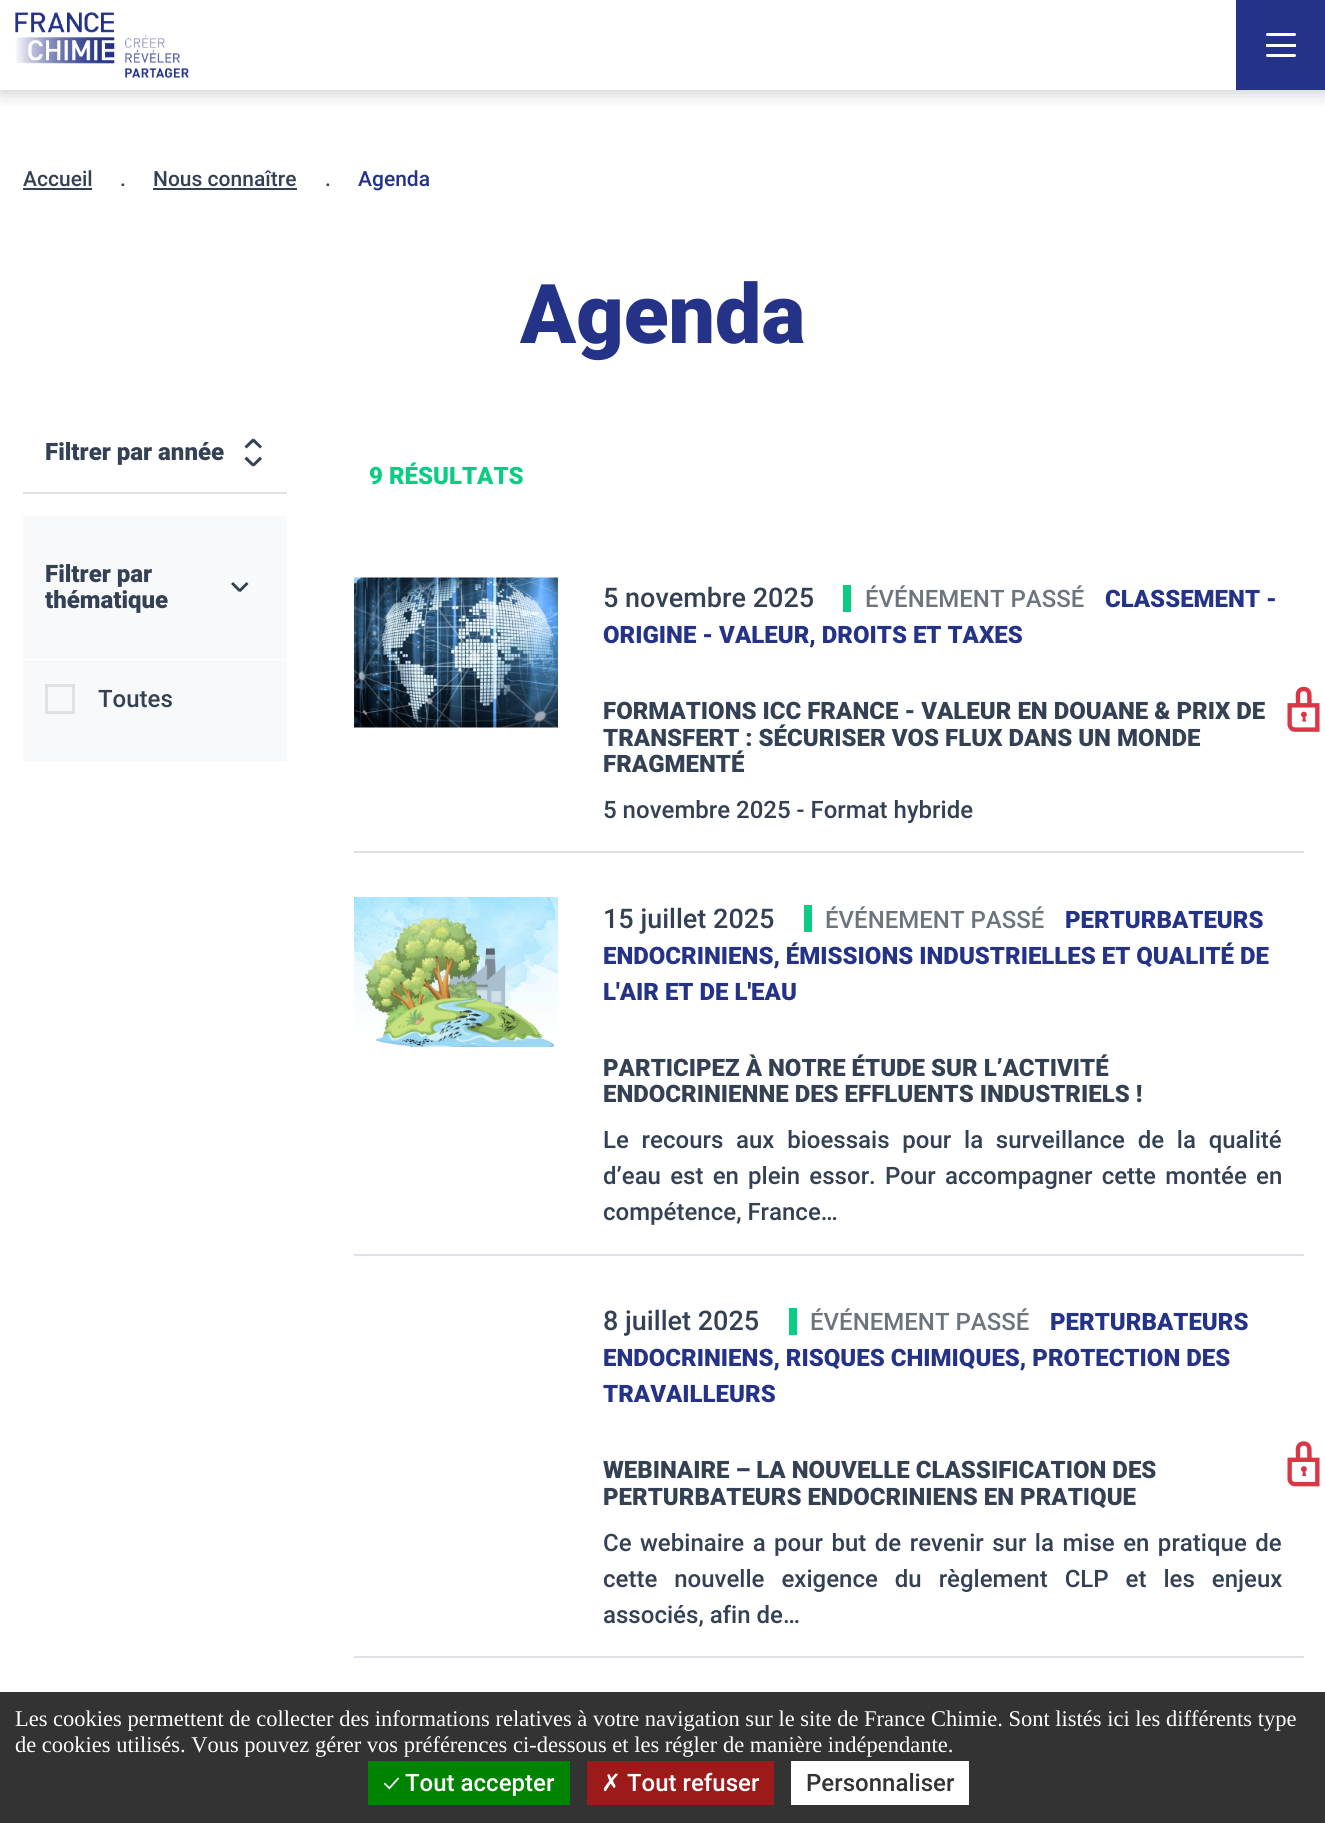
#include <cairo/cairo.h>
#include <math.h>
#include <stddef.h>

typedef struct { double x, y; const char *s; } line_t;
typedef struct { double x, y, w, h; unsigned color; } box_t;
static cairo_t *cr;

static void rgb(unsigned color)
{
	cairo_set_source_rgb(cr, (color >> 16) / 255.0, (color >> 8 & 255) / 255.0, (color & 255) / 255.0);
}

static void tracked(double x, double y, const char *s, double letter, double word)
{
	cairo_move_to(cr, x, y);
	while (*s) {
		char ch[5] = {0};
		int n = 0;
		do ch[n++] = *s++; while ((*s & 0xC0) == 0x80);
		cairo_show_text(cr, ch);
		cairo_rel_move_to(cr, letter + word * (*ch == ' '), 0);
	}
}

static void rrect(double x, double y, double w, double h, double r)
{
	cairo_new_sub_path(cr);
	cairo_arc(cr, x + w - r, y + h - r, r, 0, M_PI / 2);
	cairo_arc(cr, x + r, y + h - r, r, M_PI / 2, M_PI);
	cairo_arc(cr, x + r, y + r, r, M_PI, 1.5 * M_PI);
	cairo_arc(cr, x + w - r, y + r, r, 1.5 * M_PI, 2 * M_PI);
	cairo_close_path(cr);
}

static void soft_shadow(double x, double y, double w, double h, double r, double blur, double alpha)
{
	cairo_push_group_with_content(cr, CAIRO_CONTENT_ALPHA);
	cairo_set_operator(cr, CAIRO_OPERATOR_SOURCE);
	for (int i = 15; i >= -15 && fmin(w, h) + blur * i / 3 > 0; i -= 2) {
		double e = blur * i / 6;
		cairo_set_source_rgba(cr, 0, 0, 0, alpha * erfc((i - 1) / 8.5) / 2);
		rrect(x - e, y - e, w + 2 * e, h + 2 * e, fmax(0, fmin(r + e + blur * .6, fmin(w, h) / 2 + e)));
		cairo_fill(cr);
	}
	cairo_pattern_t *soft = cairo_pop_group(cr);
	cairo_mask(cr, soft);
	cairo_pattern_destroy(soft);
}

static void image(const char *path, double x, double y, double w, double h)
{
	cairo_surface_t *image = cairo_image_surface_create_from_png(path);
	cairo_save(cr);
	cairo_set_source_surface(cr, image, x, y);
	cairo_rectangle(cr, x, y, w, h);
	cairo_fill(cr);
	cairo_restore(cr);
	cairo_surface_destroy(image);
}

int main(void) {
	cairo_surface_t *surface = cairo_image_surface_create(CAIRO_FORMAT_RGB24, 1325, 1823);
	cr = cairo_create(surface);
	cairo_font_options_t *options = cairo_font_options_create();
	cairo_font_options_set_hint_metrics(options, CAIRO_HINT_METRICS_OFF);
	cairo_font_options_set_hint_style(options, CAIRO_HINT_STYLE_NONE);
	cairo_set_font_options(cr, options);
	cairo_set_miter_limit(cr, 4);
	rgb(0xffffff);
	cairo_paint(cr);
	cairo_save(cr);
	cairo_rectangle(cr, 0, 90, 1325, 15);
	cairo_clip(cr);
	rgb(0x000000);
	soft_shadow(0, 3, 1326, 90, 0, 9, 0.2);
	cairo_restore(cr);
	image("img/1.png", 15, 12, 174, 66);
	rgb(0x243387);
	cairo_rectangle(cr, 1236, 0, 89, 90);
	cairo_fill(cr);
	rgb(0xffffff);
	cairo_rectangle(cr, 1266, 44, 30, 3);
	cairo_fill(cr);
	rrect(1266, 33, 30, 3, 1.5);
	cairo_fill(cr);
	rrect(1266, 54, 30, 3, 1.5);
	cairo_fill(cr);
	{
		static const box_t items[] = {
			{23, 188, 69, 2, 0x344154},
			{153, 188, 144, 2, 0x344154},
			{23, 492, 264, 2, 0xdee2e6},
		};
		for (size_t i = 0; i < sizeof items / sizeof *items; i++) {
			rgb(items[i].color);
			cairo_rectangle(cr, items[i].x, items[i].y, items[i].w, items[i].h);
			cairo_fill(cr);
		}
	}
	rgb(0x344154);
	cairo_new_path(cr);
	cairo_move_to(cr, 260, 448.5);
	cairo_line_to(cr, 252, 441);
	cairo_line_to(cr, 254, 438.5);
	cairo_line_to(cr, 262, 446.5);
	cairo_close_path(cr);
	cairo_fill(cr);
	cairo_new_path(cr);
	cairo_move_to(cr, 254.5, 441);
	cairo_line_to(cr, 246.5, 448.5);
	cairo_line_to(cr, 244.5, 446.5);
	cairo_line_to(cr, 252.5, 438.5);
	cairo_close_path(cr);
	cairo_move_to(cr, 246.5, 456.5);
	cairo_line_to(cr, 254.5, 464.5);
	cairo_line_to(cr, 252.5, 466.5);
	cairo_line_to(cr, 244.5, 459);
	cairo_close_path(cr);
	cairo_fill(cr);
	cairo_new_path(cr);
	cairo_move_to(cr, 252, 464.5);
	cairo_line_to(cr, 260, 456.5);
	cairo_line_to(cr, 262, 459);
	cairo_line_to(cr, 254, 466.5);
	cairo_close_path(cr);
	cairo_fill(cr);
	rgb(0xf8f9fa);
	cairo_rectangle(cr, 23, 516, 264, 143);
	cairo_fill(cr);
	rgb(0x344154);
	cairo_new_path(cr);
	cairo_move_to(cr, 233, 582);
	cairo_line_to(cr, 241, 590);
	cairo_line_to(cr, 239, 592);
	cairo_line_to(cr, 231, 584);
	cairo_close_path(cr);
	cairo_fill(cr);
	cairo_new_path(cr);
	cairo_move_to(cr, 238.5, 590);
	cairo_line_to(cr, 246.5, 582);
	cairo_line_to(cr, 248.5, 584);
	cairo_line_to(cr, 240.5, 592);
	cairo_close_path(cr);
	cairo_fill(cr);
	rgb(0xf8f9fa);
	cairo_rectangle(cr, 23, 660, 264, 102);
	cairo_fill(cr);
	cairo_rectangle(cr, 46.5, 685.5, 27, 27);
	rgb(0xdee2e6);
	cairo_set_line_width(cr, 3);
	cairo_stroke(cr);
	cairo_rectangle(cr, 354, 851, 950, 2);
	cairo_fill(cr);
	image("img/2.png", 354, 577, 204, 151);
	rgb(0x0acc82);
	cairo_rectangle(cr, 843, 585, 8, 27);
	cairo_fill(cr);
	image("img/3.png", 1287, 686, 33, 46);
	rgb(0xdee2e6);
	cairo_rectangle(cr, 354, 1254, 950, 2);
	cairo_fill(cr);
	image("img/4.png", 354, 897, 204, 150);
	{
		static const box_t items[] = {
			{804, 905, 8, 27, 0x0acc82},
			{354, 1656, 950, 2, 0xdee2e6},
			{789, 1308, 8, 27, 0x0acc82},
		};
		for (size_t i = 0; i < sizeof items / sizeof *items; i++) {
			rgb(items[i].color);
			cairo_rectangle(cr, items[i].x, items[i].y, items[i].w, items[i].h);
			cairo_fill(cr);
		}
	}
	image("img/5.png", 1287, 1441, 33, 46);
	{
		static const box_t items[] = {
			{0, 1692, 1325, 131, 0x333333},
			{368, 1761, 202, 44, 0x008300},
			{587, 1761, 187, 44, 0x9c1a1a},
			{791, 1761, 178, 44, 0xffffff},
		};
		for (size_t i = 0; i < sizeof items / sizeof *items; i++) {
			rgb(items[i].color);
			cairo_rectangle(cr, items[i].x, items[i].y, items[i].w, items[i].h);
			cairo_fill(cr);
		}
	}
	cairo_select_font_face(cr, "Roboto Medium", CAIRO_FONT_SLANT_NORMAL, CAIRO_FONT_WEIGHT_NORMAL);
	cairo_set_font_size(cr, 21);
	rgb(0x344154);
	{
		static const line_t items[] = {
			{23, 186, "Accueil"},
			{120, 186, "."},
			{153, 186, "Nous connaître"},
			{325, 186, "."},
		};
		for (size_t i = 0; i < sizeof items / sizeof *items; i++) {
			cairo_move_to(cr, items[i].x, items[i].y);
			cairo_show_text(cr, items[i].s);
		}
	}
	rgb(0x243387);
	cairo_move_to(cr, 358, 186);
	cairo_show_text(cr, "Agenda");
	cairo_select_font_face(cr, "Roboto Black", CAIRO_FONT_SLANT_NORMAL, CAIRO_FONT_WEIGHT_NORMAL);
	cairo_set_font_size(cr, 82.5);
	cairo_move_to(cr, 520, 343);
	cairo_show_text(cr, "Agenda");
	cairo_set_font_size(cr, 24);
	rgb(0x344154);
	{
		static const line_t items[] = {
			{45, 460, "Filtrer par année"},
			{45, 582, "Filtrer par"},
			{45, 608, "thématique"},
		};
		for (size_t i = 0; i < sizeof items / sizeof *items; i++) {
			cairo_move_to(cr, items[i].x, items[i].y);
			cairo_show_text(cr, items[i].s);
		}
	}
	cairo_select_font_face(cr, "Roboto Medium", CAIRO_FONT_SLANT_NORMAL, CAIRO_FONT_WEIGHT_NORMAL);
	cairo_move_to(cr, 98, 707);
	cairo_show_text(cr, "Toutes");
	cairo_select_font_face(cr, "Roboto Black", CAIRO_FONT_SLANT_NORMAL, CAIRO_FONT_WEIGHT_NORMAL);
	rgb(0x0acc82);
	cairo_move_to(cr, 369, 484);
	cairo_show_text(cr, "9 RÉSULTATS");
	cairo_select_font_face(cr, "Roboto Medium", CAIRO_FONT_SLANT_NORMAL, CAIRO_FONT_WEIGHT_NORMAL);
	rgb(0x6c757d);
	cairo_move_to(cr, 865, 607);
	cairo_show_text(cr, "ÉVÉNEMENT PASSÉ");
	cairo_select_font_face(cr, "Roboto Black", CAIRO_FONT_SLANT_NORMAL, CAIRO_FONT_WEIGHT_NORMAL);
	rgb(0x243387);
	cairo_move_to(cr, 1105, 607);
	cairo_show_text(cr, "CLASSEMENT -");
	cairo_move_to(cr, 603, 643);
	cairo_show_text(cr, "ORIGINE - VALEUR, DROITS ET TAXES");
	cairo_select_font_face(cr, "Roboto Medium", CAIRO_FONT_SLANT_NORMAL, CAIRO_FONT_WEIGHT_NORMAL);
	cairo_set_font_size(cr, 27);
	rgb(0x344154);
	cairo_move_to(cr, 603, 607);
	cairo_show_text(cr, "5 novembre 2025");
	cairo_select_font_face(cr, "Roboto Black", CAIRO_FONT_SLANT_NORMAL, CAIRO_FONT_WEIGHT_NORMAL);
	cairo_set_font_size(cr, 24);
	{
		static const line_t items[] = {
			{603, 719, "FORMATIONS ICC FRANCE - VALEUR EN DOUANE & PRIX DE"},
			{603, 746, "TRANSFERT : SÉCURISER VOS FLUX DANS UN MONDE"},
			{603, 772, "FRAGMENTÉ"},
		};
		for (size_t i = 0; i < sizeof items / sizeof *items; i++) {
			cairo_move_to(cr, items[i].x, items[i].y);
			cairo_show_text(cr, items[i].s);
		}
	}
	cairo_select_font_face(cr, "Roboto Medium", CAIRO_FONT_SLANT_NORMAL, CAIRO_FONT_WEIGHT_NORMAL);
	cairo_move_to(cr, 603, 818);
	cairo_show_text(cr, "5 novembre 2025 - Format hybride");
	rgb(0x6c757d);
	cairo_move_to(cr, 825, 928);
	cairo_show_text(cr, "ÉVÉNEMENT PASSÉ");
	cairo_select_font_face(cr, "Roboto Black", CAIRO_FONT_SLANT_NORMAL, CAIRO_FONT_WEIGHT_NORMAL);
	rgb(0x243387);
	{
		static const line_t items[] = {
			{1065, 928, "PERTURBATEURS"},
			{603, 964, "ENDOCRINIENS, ÉMISSIONS INDUSTRIELLES ET QUALITÉ DE"},
			{603, 1000, "L'AIR ET DE L'EAU"},
		};
		for (size_t i = 0; i < sizeof items / sizeof *items; i++) {
			cairo_move_to(cr, items[i].x, items[i].y);
			cairo_show_text(cr, items[i].s);
		}
	}
	cairo_select_font_face(cr, "Roboto Medium", CAIRO_FONT_SLANT_NORMAL, CAIRO_FONT_WEIGHT_NORMAL);
	cairo_set_font_size(cr, 27);
	rgb(0x344154);
	cairo_move_to(cr, 603, 928);
	cairo_show_text(cr, "15 juillet 2025");
	cairo_select_font_face(cr, "Roboto Black", CAIRO_FONT_SLANT_NORMAL, CAIRO_FONT_WEIGHT_NORMAL);
	cairo_set_font_size(cr, 24);
	cairo_move_to(cr, 603, 1076);
	cairo_show_text(cr, "PARTICIPEZ À NOTRE ÉTUDE SUR L’ACTIVITÉ");
	cairo_move_to(cr, 603, 1102);
	cairo_show_text(cr, "ENDOCRINIENNE DES EFFLUENTS INDUSTRIELS !");
	cairo_select_font_face(cr, "Roboto Medium", CAIRO_FONT_SLANT_NORMAL, CAIRO_FONT_WEIGHT_NORMAL);
	tracked(603, 1148, "Le recours aux bioessais pour la surveillance de la qualité", 0, 6.75);
	tracked(603, 1184, "d’eau est en plein essor. Pour accompagner cette montée en", 0, 3.25);
	cairo_move_to(cr, 603, 1220);
	cairo_show_text(cr, "compétence, France…");
	rgb(0x6c757d);
	cairo_move_to(cr, 810, 1330);
	cairo_show_text(cr, "ÉVÉNEMENT PASSÉ");
	cairo_select_font_face(cr, "Roboto Black", CAIRO_FONT_SLANT_NORMAL, CAIRO_FONT_WEIGHT_NORMAL);
	rgb(0x243387);
	{
		static const line_t items[] = {
			{1050, 1330, "PERTURBATEURS"},
			{603, 1366, "ENDOCRINIENS, RISQUES CHIMIQUES, PROTECTION DES"},
			{603, 1402, "TRAVAILLEURS"},
		};
		for (size_t i = 0; i < sizeof items / sizeof *items; i++) {
			cairo_move_to(cr, items[i].x, items[i].y);
			cairo_show_text(cr, items[i].s);
		}
	}
	cairo_select_font_face(cr, "Roboto Medium", CAIRO_FONT_SLANT_NORMAL, CAIRO_FONT_WEIGHT_NORMAL);
	cairo_set_font_size(cr, 27);
	rgb(0x344154);
	cairo_move_to(cr, 603, 1330);
	cairo_show_text(cr, "8 juillet 2025");
	cairo_select_font_face(cr, "Roboto Black", CAIRO_FONT_SLANT_NORMAL, CAIRO_FONT_WEIGHT_NORMAL);
	cairo_set_font_size(cr, 24);
	cairo_move_to(cr, 603, 1478);
	cairo_show_text(cr, "WEBINAIRE – LA NOUVELLE CLASSIFICATION DES");
	cairo_move_to(cr, 603, 1505);
	cairo_show_text(cr, "PERTURBATEURS ENDOCRINIENS EN PRATIQUE");
	cairo_select_font_face(cr, "Roboto Medium", CAIRO_FONT_SLANT_NORMAL, CAIRO_FONT_WEIGHT_NORMAL);
	tracked(603, 1551, "Ce webinaire a pour but de revenir sur la mise en pratique de", 0, 2.5);
	tracked(603, 1587, "cette nouvelle exigence du règlement CLP et les enjeux", 0, 11);
	cairo_move_to(cr, 603, 1623);
	cairo_show_text(cr, "associés, afin de…");
	cairo_select_font_face(cr, "Liberation Serif", CAIRO_FONT_SLANT_NORMAL, CAIRO_FONT_WEIGHT_NORMAL);
	cairo_set_font_size(cr, 22.5);
	rgb(0xffffff);
	cairo_move_to(cr, 15, 1726);
	cairo_show_text(cr, "Les cookies permettent de collecter des informations relatives à votre navigation sur le site de France Chimie. Sont listés ici les différents type");
	cairo_move_to(cr, 15, 1752);
	cairo_show_text(cr, "de cookies utilisés. Vous pouvez gérer vos préférences ci-dessous et les régler de manière indépendante.");
	cairo_select_font_face(cr, "Ubuntu", CAIRO_FONT_SLANT_NORMAL, CAIRO_FONT_WEIGHT_NORMAL);
	cairo_set_font_size(cr, 24);
	cairo_move_to(cr, 383, 1791);
	cairo_show_text(cr, "✓");
	cairo_select_font_face(cr, "Roboto Medium", CAIRO_FONT_SLANT_NORMAL, CAIRO_FONT_WEIGHT_NORMAL);
	cairo_move_to(cr, 405, 1791);
	cairo_show_text(cr, "Tout accepter");
	cairo_select_font_face(cr, "DejaVu Sans", CAIRO_FONT_SLANT_NORMAL, CAIRO_FONT_WEIGHT_NORMAL);
	cairo_move_to(cr, 601, 1791);
	cairo_show_text(cr, "✗");
	cairo_select_font_face(cr, "Roboto Medium", CAIRO_FONT_SLANT_NORMAL, CAIRO_FONT_WEIGHT_NORMAL);
	cairo_move_to(cr, 627, 1791);
	cairo_show_text(cr, "Tout refuser");
	rgb(0x333333);
	cairo_move_to(cr, 806, 1791);
	cairo_show_text(cr, "Personnaliser");
	cairo_surface_write_to_png(surface, "page.png");
	cairo_font_options_destroy(options);
	cairo_destroy(cr);
	cairo_surface_destroy(surface);
	return 0;
}
